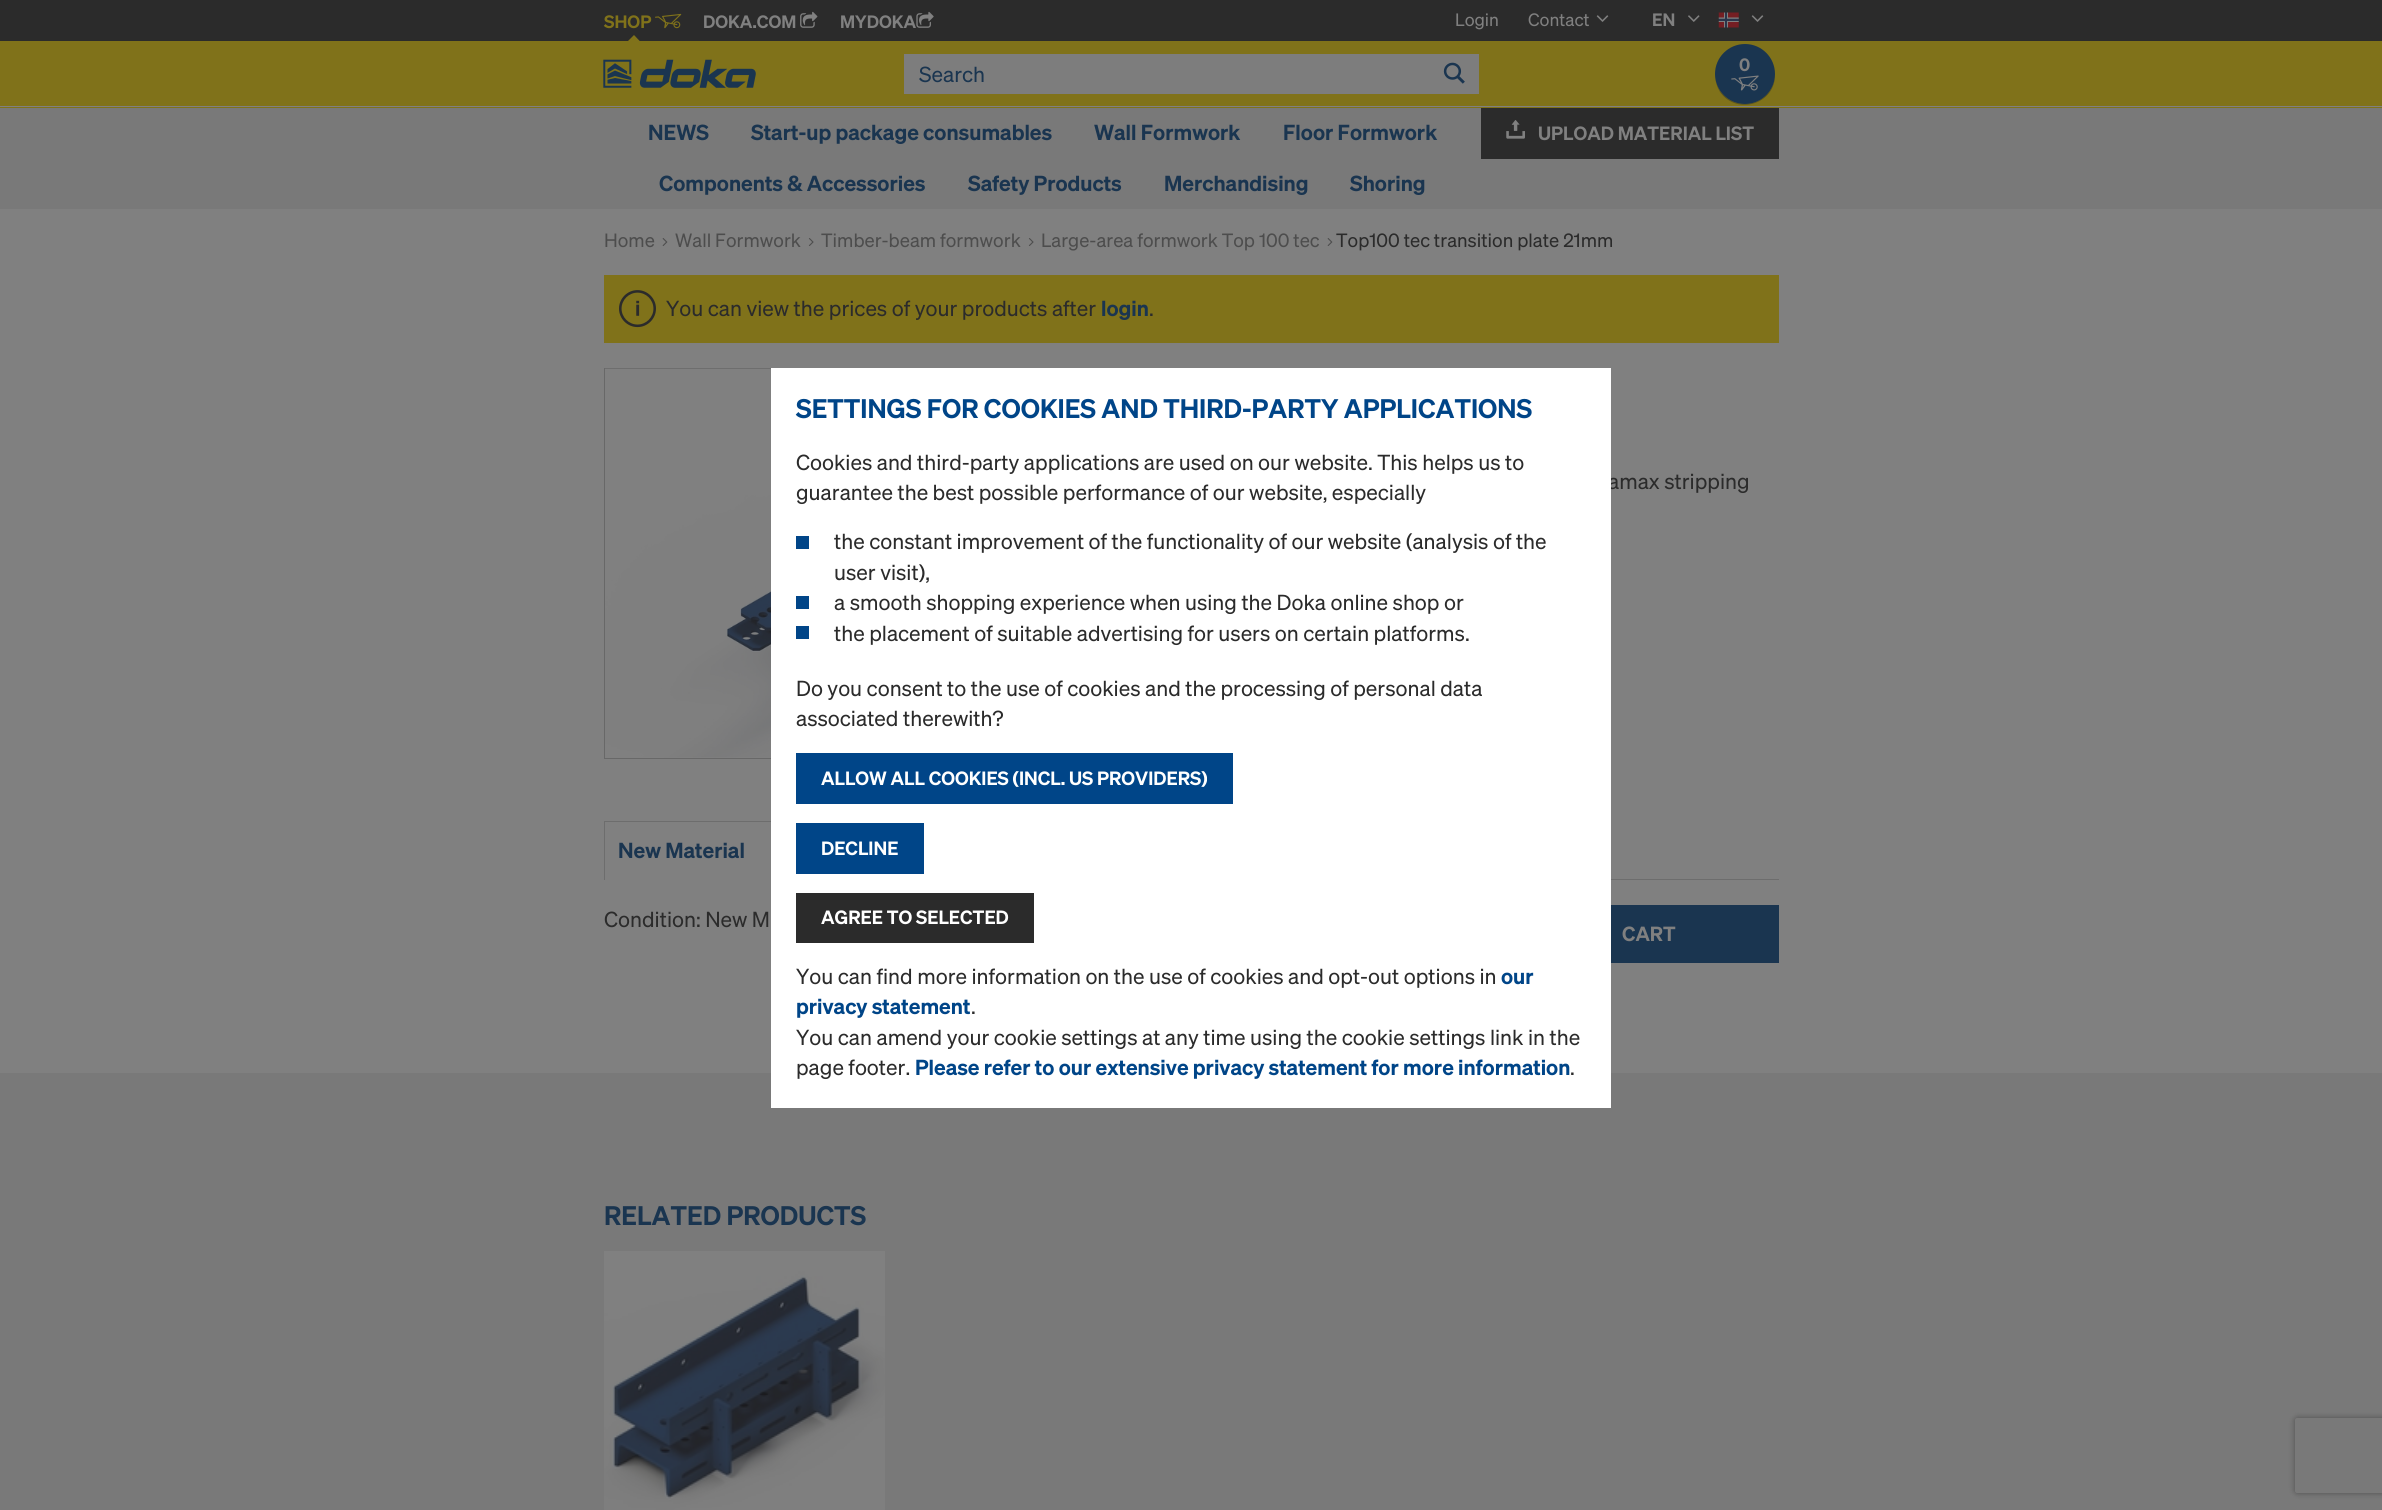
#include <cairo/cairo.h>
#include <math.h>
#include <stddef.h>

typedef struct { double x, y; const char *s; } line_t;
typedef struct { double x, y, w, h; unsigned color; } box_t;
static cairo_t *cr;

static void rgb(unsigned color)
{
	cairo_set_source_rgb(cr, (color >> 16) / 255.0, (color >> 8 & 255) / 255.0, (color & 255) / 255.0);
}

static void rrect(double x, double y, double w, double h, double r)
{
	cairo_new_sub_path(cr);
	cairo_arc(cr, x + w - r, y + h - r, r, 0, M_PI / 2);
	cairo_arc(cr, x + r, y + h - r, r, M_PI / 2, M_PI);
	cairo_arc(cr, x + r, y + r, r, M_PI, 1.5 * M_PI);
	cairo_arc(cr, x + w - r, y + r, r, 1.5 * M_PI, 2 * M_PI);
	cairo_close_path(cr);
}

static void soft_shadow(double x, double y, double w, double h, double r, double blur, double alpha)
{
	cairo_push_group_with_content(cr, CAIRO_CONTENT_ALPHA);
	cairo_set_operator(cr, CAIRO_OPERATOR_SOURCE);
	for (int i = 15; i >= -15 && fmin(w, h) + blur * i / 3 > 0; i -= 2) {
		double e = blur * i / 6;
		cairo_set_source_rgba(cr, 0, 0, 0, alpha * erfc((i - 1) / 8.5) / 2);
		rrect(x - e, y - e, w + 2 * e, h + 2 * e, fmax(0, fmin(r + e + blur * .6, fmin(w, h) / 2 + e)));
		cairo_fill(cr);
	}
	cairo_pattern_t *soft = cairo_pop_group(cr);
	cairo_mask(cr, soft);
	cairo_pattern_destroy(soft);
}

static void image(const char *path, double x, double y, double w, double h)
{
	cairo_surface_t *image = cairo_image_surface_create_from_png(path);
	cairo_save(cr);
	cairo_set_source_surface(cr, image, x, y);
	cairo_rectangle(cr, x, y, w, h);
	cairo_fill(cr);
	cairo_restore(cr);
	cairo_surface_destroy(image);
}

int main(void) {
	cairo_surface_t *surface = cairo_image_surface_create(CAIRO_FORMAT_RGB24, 2382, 1510);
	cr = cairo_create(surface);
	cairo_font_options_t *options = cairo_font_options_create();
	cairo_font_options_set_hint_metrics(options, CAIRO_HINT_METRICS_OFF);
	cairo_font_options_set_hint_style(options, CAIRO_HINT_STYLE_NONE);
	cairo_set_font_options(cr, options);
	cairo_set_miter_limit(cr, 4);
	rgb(0x808080);
	cairo_paint(cr);
	rgb(0x2b2b2b);
	cairo_rectangle(cr, 0, 0, 2382, 41);
	cairo_fill(cr);
	image("img/1.png", 655, 13, 27, 16);
	rgb(0x80721a);
	cairo_rectangle(cr, 0, 41, 2382, 67);
	cairo_fill(cr);
	cairo_new_path(cr);
	cairo_move_to(cr, 642.5, 44);
	cairo_line_to(cr, 625, 44);
	cairo_line_to(cr, 634, 35);
	cairo_close_path(cr);
	cairo_fill(cr);
	image("img/2.png", 800, 11, 18, 17);
	image("img/3.png", 916, 11, 18, 17);
	image("img/4.png", 1596, 15, 13, 7);
	image("img/5.png", 1688, 15, 12, 7);
	image("img/6.png", 1718, 12, 21, 16);
	image("img/4.png", 1751, 15, 13, 7);
	rgb(0x808080);
	cairo_rectangle(cr, 0, 106, 2382, 1);
	cairo_fill(cr);
	image("img/7.png", 603, 59, 153, 29);
	rgb(0x7d7d7d);
	cairo_rectangle(cr, 904, 54, 575, 40);
	cairo_fill(cr);
	image("img/8.png", 1443, 62, 22, 22);
	rgb(0x5c531a);
	cairo_new_path(cr);
	cairo_move_to(cr, 1775, 74);
	cairo_curve_to(cr, 1775, 91, 1761, 104, 1745, 104);
	cairo_curve_to(cr, 1729, 104, 1715, 91, 1715, 74);
	cairo_curve_to(cr, 1715, 81, 1717, 87, 1720, 92);
	cairo_curve_to(cr, 1737, 116, 1776, 104, 1775, 74);
	cairo_close_path(cr);
	cairo_fill(cr);
	rgb(0x1a3550);
	cairo_arc(cr, 1745, 74, 30, 0, 2 * M_PI);
	cairo_fill(cr);
	image("img/9.png", 1731, 75, 28, 16);
	rgb(0x797979);
	cairo_rectangle(cr, 0, 108, 2382, 101);
	cairo_fill(cr);
	rgb(0x2b2b2b);
	cairo_rectangle(cr, 1481, 108, 298, 51);
	cairo_fill(cr);
	image("img/10.png", 1506, 120, 19, 19);
	image("img/11.png", 662, 238, 6, 8);
	image("img/12.png", 808, 238, 6, 8);
	image("img/12.png", 1028, 238, 6, 8);
	image("img/11.png", 1327, 238, 6, 8);
	rgb(0x80721a);
	cairo_rectangle(cr, 604, 275, 1175, 68);
	cairo_fill(cr);
	image("img/13.png", 619, 290, 37, 38);
	cairo_rectangle(cr, 604.5, 368.5, 390, 390);
	rgb(0x686868);
	cairo_set_line_width(cr, 1);
	cairo_stroke(cr);
	image("img/14.png", 605, 368, 166, 390);
	{
		static const box_t items[] = {
			{1611, 879, 168, 1, 0x6d6d6d},
			{604, 821, 167, 1, 0x6d6d6d},
			{604, 821, 1, 59, 0x6d6d6d},
			{1611, 905, 168, 58, 0x1a3550},
			{0, 1073, 2382, 437, 0x797979},
		};
		for (size_t i = 0; i < sizeof items / sizeof *items; i++) {
			rgb(items[i].color);
			cairo_rectangle(cr, items[i].x, items[i].y, items[i].w, items[i].h);
			cairo_fill(cr);
		}
	}
	image("img/15.png", 604, 1251, 281, 259);
	cairo_save(cr);
	cairo_set_fill_rule(cr, CAIRO_FILL_RULE_EVEN_ODD);
	cairo_new_path(cr);
	cairo_move_to(cr, 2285, 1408);
	cairo_line_to(cr, 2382, 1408);
	cairo_line_to(cr, 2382, 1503);
	cairo_line_to(cr, 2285, 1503);
	cairo_close_path(cr);
	cairo_move_to(cr, 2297.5, 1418);
	cairo_line_to(cr, 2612.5, 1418);
	cairo_curve_to(cr, 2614, 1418, 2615, 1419, 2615, 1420.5);
	cairo_line_to(cr, 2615, 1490.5);
	cairo_curve_to(cr, 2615, 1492, 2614, 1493, 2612.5, 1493);
	cairo_line_to(cr, 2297.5, 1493);
	cairo_curve_to(cr, 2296, 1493, 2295, 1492, 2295, 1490.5);
	cairo_line_to(cr, 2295, 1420.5);
	cairo_curve_to(cr, 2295, 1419, 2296, 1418, 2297.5, 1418);
	cairo_close_path(cr);
	cairo_clip(cr);
	rgb(0x4d4d4d);
	soft_shadow(2295, 1418, 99, 75, 2.5, 3, 1);
	cairo_restore(cr);
	cairo_select_font_face(cr, "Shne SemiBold", CAIRO_FONT_SLANT_NORMAL, CAIRO_FONT_WEIGHT_NORMAL);
	cairo_set_font_size(cr, 17.5);
	rgb(0x80721a);
	cairo_move_to(cr, 604, 28);
	cairo_show_text(cr, "SHOP");
	rgb(0x808080);
	cairo_move_to(cr, 703, 28);
	cairo_show_text(cr, "DOKA.COM");
	cairo_move_to(cr, 840, 28);
	cairo_show_text(cr, "MYDOKA");
	cairo_select_font_face(cr, "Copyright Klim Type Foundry", CAIRO_FONT_SLANT_NORMAL, CAIRO_FONT_WEIGHT_NORMAL);
	cairo_move_to(cr, 1455, 26);
	cairo_show_text(cr, "Login");
	cairo_move_to(cr, 1528, 26);
	cairo_show_text(cr, "Contact");
	cairo_select_font_face(cr, "Shne SemiBold", CAIRO_FONT_SLANT_NORMAL, CAIRO_FONT_WEIGHT_NORMAL);
	cairo_move_to(cr, 1652, 26);
	cairo_show_text(cr, "EN");
	cairo_select_font_face(cr, "Copyright Klim Type Foundry", CAIRO_FONT_SLANT_NORMAL, CAIRO_FONT_WEIGHT_NORMAL);
	cairo_set_font_size(cr, 21.25);
	rgb(0x1a3550);
	cairo_move_to(cr, 919, 82);
	cairo_show_text(cr, "Search");
	cairo_select_font_face(cr, "Shne SemiBold", CAIRO_FONT_SLANT_NORMAL, CAIRO_FONT_WEIGHT_NORMAL);
	cairo_set_font_size(cr, 17.5);
	rgb(0x808080);
	cairo_move_to(cr, 1739, 71);
	cairo_show_text(cr, "0");
	cairo_set_font_size(cr, 21.25);
	rgb(0x1a3550);
	{
		static const line_t items[] = {
			{648, 140, "NEWS"},
			{751, 140, "Start-up package consumables"},
			{1094, 140, "Wall Formwork"},
			{1283, 140, "Floor Formwork"},
			{659, 191, "Components & Accessories"},
			{968, 191, "Safety Products"},
			{1164, 191, "Merchandising"},
			{1350, 191, "Shoring"},
		};
		for (size_t i = 0; i < sizeof items / sizeof *items; i++) {
			cairo_move_to(cr, items[i].x, items[i].y);
			cairo_show_text(cr, items[i].s);
		}
	}
	cairo_set_font_size(cr, 18.75);
	rgb(0x808080);
	cairo_move_to(cr, 1538, 140);
	cairo_show_text(cr, "UPLOAD MATERIAL LIST");
	cairo_select_font_face(cr, "Copyright Klim Type Foundry", CAIRO_FONT_SLANT_NORMAL, CAIRO_FONT_WEIGHT_NORMAL);
	rgb(0x4d4d4d);
	{
		static const line_t items[] = {
			{604, 247, "Home"},
			{675, 247, "Wall Formwork"},
			{821, 247, "Timber-beam formwork"},
			{1041, 247, "Large-area formwork Top 100 tec"},
		};
		for (size_t i = 0; i < sizeof items / sizeof *items; i++) {
			cairo_move_to(cr, items[i].x, items[i].y);
			cairo_show_text(cr, items[i].s);
		}
	}
	rgb(0x2b2b2b);
	cairo_move_to(cr, 1336, 247);
	cairo_show_text(cr, "Top100 tec transition plate 21mm");
	cairo_set_font_size(cr, 21.25);
	cairo_move_to(cr, 666, 316);
	cairo_show_text(cr, "You can view the prices of your products after");
	cairo_select_font_face(cr, "Shne SemiBold", CAIRO_FONT_SLANT_NORMAL, CAIRO_FONT_WEIGHT_NORMAL);
	rgb(0x1a3550);
	cairo_move_to(cr, 1101, 316);
	cairo_show_text(cr, "login");
	cairo_select_font_face(cr, "Copyright Klim Type Foundry", CAIRO_FONT_SLANT_NORMAL, CAIRO_FONT_WEIGHT_NORMAL);
	rgb(0x2b2b2b);
	cairo_move_to(cr, 1149, 316);
	cairo_show_text(cr, ".");
	cairo_move_to(cr, 1608, 489);
	cairo_show_text(cr, "amax stripping");
	cairo_select_font_face(cr, "Shne SemiBold", CAIRO_FONT_SLANT_NORMAL, CAIRO_FONT_WEIGHT_NORMAL);
	rgb(0x1a3550);
	cairo_move_to(cr, 618, 858);
	cairo_show_text(cr, "New Material");
	cairo_select_font_face(cr, "Copyright Klim Type Foundry", CAIRO_FONT_SLANT_NORMAL, CAIRO_FONT_WEIGHT_NORMAL);
	rgb(0x2b2b2b);
	cairo_move_to(cr, 604, 927);
	cairo_show_text(cr, "Condition: New M");
	cairo_select_font_face(cr, "Shne SemiBold", CAIRO_FONT_SLANT_NORMAL, CAIRO_FONT_WEIGHT_NORMAL);
	cairo_set_font_size(cr, 20);
	rgb(0x808080);
	cairo_move_to(cr, 1622, 941);
	cairo_show_text(cr, "CART");
	cairo_set_font_size(cr, 26.25);
	rgb(0x1a3550);
	cairo_move_to(cr, 604, 1225);
	cairo_show_text(cr, "RELATED PRODUCTS");
	rgb(0xffffff);
	cairo_rectangle(cr, 771, 368, 840, 740);
	cairo_fill(cr);
	rgb(0x004588);
	cairo_move_to(cr, 796, 418);
	cairo_show_text(cr, "SETTINGS FOR COOKIES AND THIRD-PARTY APPLICATIONS");
	cairo_select_font_face(cr, "Copyright Klim Type Foundry", CAIRO_FONT_SLANT_NORMAL, CAIRO_FONT_WEIGHT_NORMAL);
	cairo_set_font_size(cr, 21.25);
	rgb(0x2b2b2b);
	cairo_move_to(cr, 796, 470);
	cairo_show_text(cr, "Cookies and third-party applications are used on our website. This helps us to");
	cairo_move_to(cr, 796, 500);
	cairo_show_text(cr, "guarantee the best possible performance of our website, especially");
	rgb(0x004588);
	cairo_rectangle(cr, 796, 536, 13, 13);
	cairo_fill(cr);
	rgb(0x2b2b2b);
	cairo_move_to(cr, 834, 549);
	cairo_show_text(cr, "the constant improvement of the functionality of our website (analysis of the");
	cairo_move_to(cr, 834, 580);
	cairo_show_text(cr, "user visit),");
	rgb(0x004588);
	cairo_rectangle(cr, 796, 596, 13, 13);
	cairo_fill(cr);
	rgb(0x2b2b2b);
	cairo_move_to(cr, 834, 610);
	cairo_show_text(cr, "a smooth shopping experience when using the Doka online shop or");
	rgb(0x004588);
	cairo_rectangle(cr, 796, 626, 13, 13);
	cairo_fill(cr);
	rgb(0x2b2b2b);
	{
		static const line_t items[] = {
			{834, 641, "the placement of suitable advertising for users on certain platforms."},
			{796, 696, "Do you consent to the use of cookies and the processing of personal data"},
			{796, 726, "associated therewith?"},
		};
		for (size_t i = 0; i < sizeof items / sizeof *items; i++) {
			cairo_move_to(cr, items[i].x, items[i].y);
			cairo_show_text(cr, items[i].s);
		}
	}
	rgb(0x004588);
	cairo_rectangle(cr, 796, 753, 437, 51);
	cairo_fill(cr);
	cairo_select_font_face(cr, "Shne SemiBold", CAIRO_FONT_SLANT_NORMAL, CAIRO_FONT_WEIGHT_NORMAL);
	cairo_set_font_size(cr, 18.75);
	rgb(0xffffff);
	cairo_move_to(cr, 821, 785);
	cairo_show_text(cr, "ALLOW ALL COOKIES (INCL. US PROVIDERS)");
	rgb(0x004588);
	cairo_rectangle(cr, 796, 823, 128, 51);
	cairo_fill(cr);
	rgb(0xffffff);
	cairo_move_to(cr, 821, 855);
	cairo_show_text(cr, "DECLINE");
	rgb(0x2b2b2b);
	cairo_rectangle(cr, 796, 893, 238, 50);
	cairo_fill(cr);
	rgb(0xffffff);
	cairo_move_to(cr, 821, 924);
	cairo_show_text(cr, "AGREE TO SELECTED");
	cairo_select_font_face(cr, "Copyright Klim Type Foundry", CAIRO_FONT_SLANT_NORMAL, CAIRO_FONT_WEIGHT_NORMAL);
	cairo_set_font_size(cr, 21.25);
	rgb(0x2b2b2b);
	cairo_move_to(cr, 796, 984);
	cairo_show_text(cr, "You can find more information on the use of cookies and opt-out options in");
	cairo_select_font_face(cr, "Shne SemiBold", CAIRO_FONT_SLANT_NORMAL, CAIRO_FONT_WEIGHT_NORMAL);
	rgb(0x004588);
	cairo_move_to(cr, 1501, 984);
	cairo_show_text(cr, "our");
	cairo_move_to(cr, 796, 1014);
	cairo_show_text(cr, "privacy statement");
	cairo_select_font_face(cr, "Copyright Klim Type Foundry", CAIRO_FONT_SLANT_NORMAL, CAIRO_FONT_WEIGHT_NORMAL);
	rgb(0x2b2b2b);
	{
		static const line_t items[] = {
			{971, 1014, "."},
			{796, 1045, "You can amend your cookie settings at any time using the cookie settings link in the"},
			{796, 1075, "page footer."},
		};
		for (size_t i = 0; i < sizeof items / sizeof *items; i++) {
			cairo_move_to(cr, items[i].x, items[i].y);
			cairo_show_text(cr, items[i].s);
		}
	}
	cairo_select_font_face(cr, "Shne SemiBold", CAIRO_FONT_SLANT_NORMAL, CAIRO_FONT_WEIGHT_NORMAL);
	rgb(0x004588);
	cairo_move_to(cr, 915, 1075);
	cairo_show_text(cr, "Please refer to our extensive privacy statement for more information");
	cairo_select_font_face(cr, "Copyright Klim Type Foundry", CAIRO_FONT_SLANT_NORMAL, CAIRO_FONT_WEIGHT_NORMAL);
	rgb(0x2b2b2b);
	cairo_move_to(cr, 1570, 1075);
	cairo_show_text(cr, ".");
	cairo_surface_write_to_png(surface, "page.png");
	cairo_font_options_destroy(options);
	cairo_destroy(cr);
	cairo_surface_destroy(surface);
	return 0;
}
